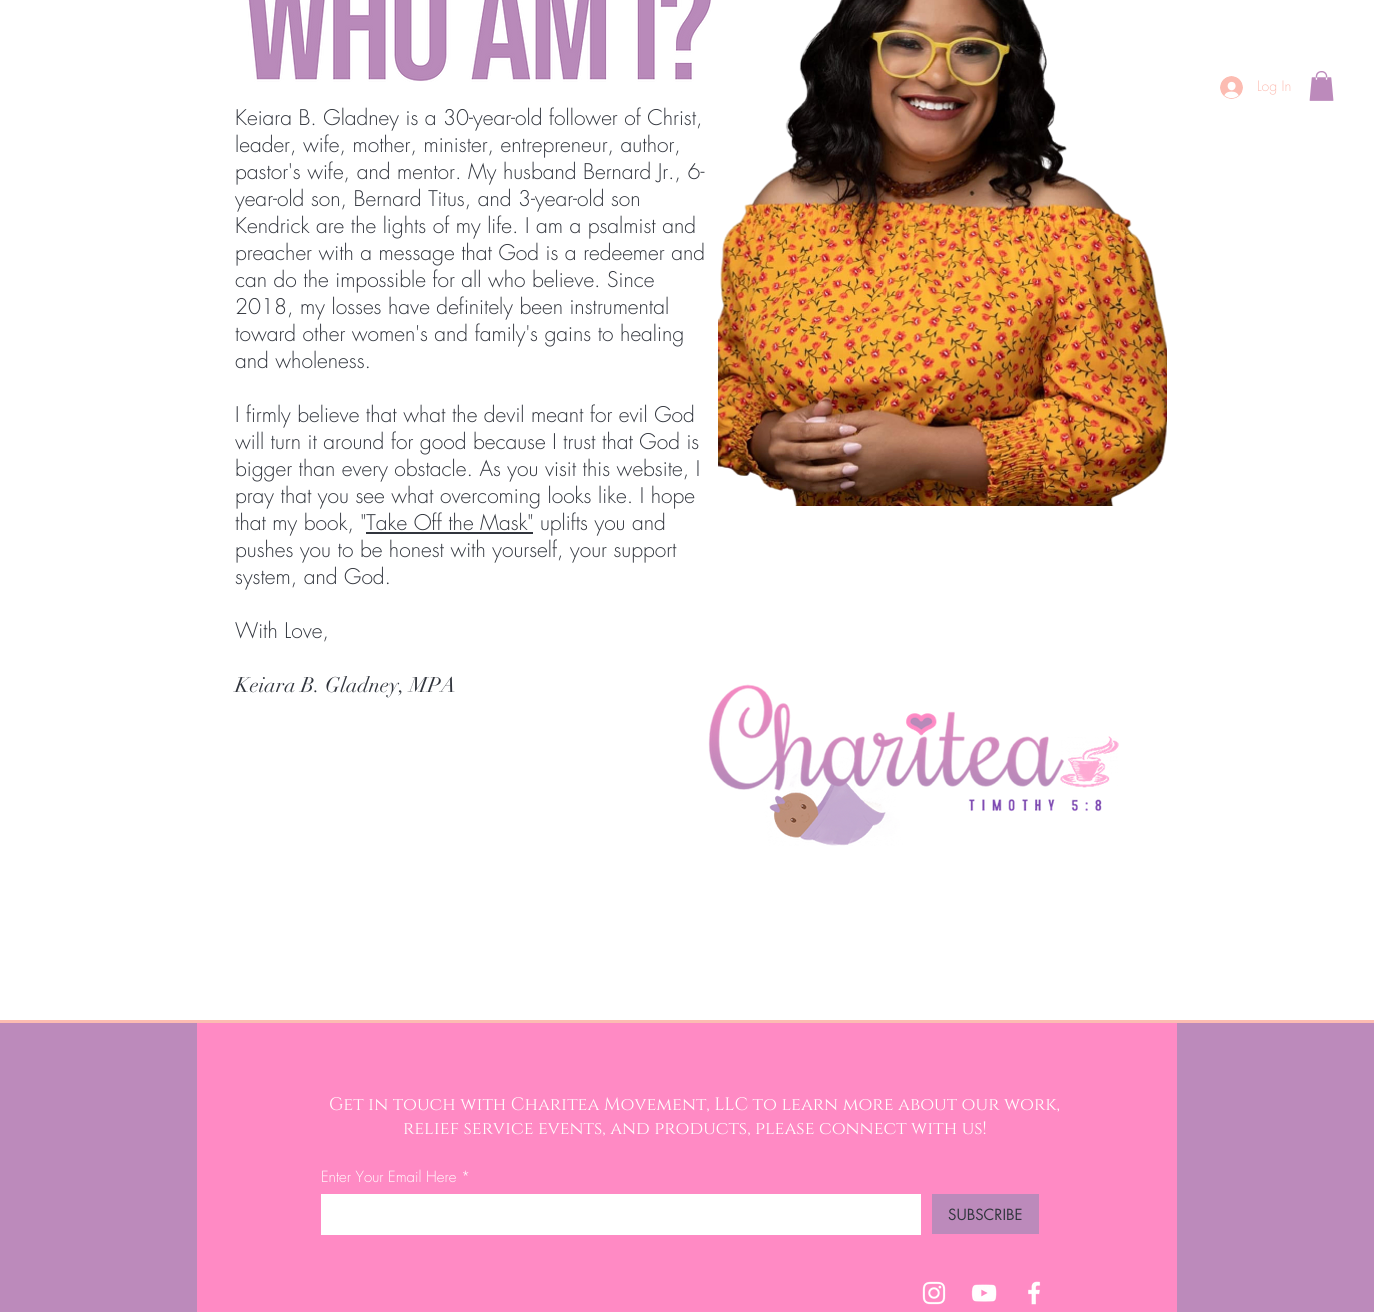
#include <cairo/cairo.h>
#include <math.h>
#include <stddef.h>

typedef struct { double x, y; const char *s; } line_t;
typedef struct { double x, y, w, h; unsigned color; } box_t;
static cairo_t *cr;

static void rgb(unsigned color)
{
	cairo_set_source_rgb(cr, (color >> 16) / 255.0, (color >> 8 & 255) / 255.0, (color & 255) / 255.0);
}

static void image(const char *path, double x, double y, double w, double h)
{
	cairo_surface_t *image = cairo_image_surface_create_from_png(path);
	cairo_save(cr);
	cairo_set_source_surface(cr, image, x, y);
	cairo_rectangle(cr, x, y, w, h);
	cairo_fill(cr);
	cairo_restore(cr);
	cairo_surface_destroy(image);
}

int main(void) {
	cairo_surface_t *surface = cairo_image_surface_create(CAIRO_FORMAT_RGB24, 1374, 1312);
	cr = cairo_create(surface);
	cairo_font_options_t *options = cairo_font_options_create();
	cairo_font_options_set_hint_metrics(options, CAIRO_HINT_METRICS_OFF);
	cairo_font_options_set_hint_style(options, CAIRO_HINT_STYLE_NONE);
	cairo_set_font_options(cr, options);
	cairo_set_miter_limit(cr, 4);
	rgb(0xffffff);
	cairo_paint(cr);
	image("img/1.png", 1220, 76, 23, 23);
	image("img/2.png", 1309, 71, 25, 30);
	image("img/3.png", 248, 0, 463, 82);
	image("img/4.png", 718, 0, 449, 506);
	rgb(0x31353d);
	cairo_rectangle(cr, 366, 532, 167, 2);
	cairo_fill(cr);
	image("img/5.png", 708, 684, 411, 162);
	{
		static const box_t items[] = {
			{0, 1023, 1374, 289, 0xbc8abb},
			{0, 1020, 1374, 3, 0xfcbcb2},
			{197, 1023, 980, 289, 0xff8ac4},
			{321, 1194, 600, 41, 0xffffff},
			{932, 1194, 107, 40, 0xbc8abb},
		};
		for (size_t i = 0; i < sizeof items / sizeof *items; i++) {
			rgb(items[i].color);
			cairo_rectangle(cr, items[i].x, items[i].y, items[i].w, items[i].h);
			cairo_fill(cr);
		}
	}
	image("img/6.png", 922, 1281, 24, 24);
	image("img/7.png", 971, 1284, 26, 18);
	image("img/8.png", 1028, 1281, 13, 24);
	cairo_select_font_face(cr, "futura Light", CAIRO_FONT_SLANT_NORMAL, CAIRO_FONT_WEIGHT_NORMAL);
	cairo_set_font_size(cr, 14);
	rgb(0xfcbcb2);
	cairo_move_to(cr, 1257, 91);
	cairo_show_text(cr, "Log In");
	cairo_set_font_size(cr, 21);
	rgb(0x31353d);
	{
		static const line_t items[] = {
			{235, 125, "Keiara B. Gladney is a 30-year-old follower of Christ,"},
			{235, 152, "leader, wife, mother, minister, entrepreneur, author,"},
			{235, 179, "pastor's wife, and mentor. My husband Bernard Jr., 6-"},
			{235, 206, "year-old son, Bernard Titus, and 3-year-old son"},
			{235, 233, "Kendrick are the lights of my life. I am a psalmist and"},
			{235, 260, "preacher with a message that God is a redeemer and"},
			{235, 287, "can do the impossible for all who believe. Since"},
			{235, 314, "2018, my losses have definitely been instrumental"},
			{235, 341, "toward other women's and family's gains to healing"},
			{235, 368, "and wholeness."},
			{235, 422, "I firmly believe that what the devil meant for evil God"},
			{235, 449, "will turn it around for good because I trust that God is"},
			{235, 476, "bigger than every obstacle. As you visit this website, I"},
			{235, 503, "pray that you see what overcoming looks like. I hope"},
			{235, 530, "that my book, \"Take Off the Mask\" uplifts you and"},
			{235, 557, "pushes you to be honest with yourself, your support"},
			{235, 584, "system, and God."},
			{235, 638, "With Love,"},
		};
		for (size_t i = 0; i < sizeof items / sizeof *items; i++) {
			cairo_move_to(cr, items[i].x, items[i].y);
			cairo_show_text(cr, items[i].s);
		}
	}
	cairo_select_font_face(cr, "didot", CAIRO_FONT_SLANT_NORMAL, CAIRO_FONT_WEIGHT_NORMAL);
	cairo_move_to(cr, 235, 692);
	cairo_show_text(cr, "Keiara B. Gladney, MPA");
	cairo_select_font_face(cr, "Cinzel", CAIRO_FONT_SLANT_NORMAL, CAIRO_FONT_WEIGHT_NORMAL);
	cairo_set_font_size(cr, 18);
	rgb(0xffffff);
	cairo_move_to(cr, 329, 1110);
	cairo_show_text(cr, "Get in touch with Charitea Movement, LLC to learn more about our work,");
	cairo_move_to(cr, 403, 1134);
	cairo_show_text(cr, "relief service events, and products, please connect with us!");
	cairo_select_font_face(cr, "futura Light", CAIRO_FONT_SLANT_NORMAL, CAIRO_FONT_WEIGHT_NORMAL);
	cairo_set_font_size(cr, 15);
	cairo_move_to(cr, 321, 1182);
	cairo_show_text(cr, "Enter Your Email Here *");
	cairo_select_font_face(cr, "futura", CAIRO_FONT_SLANT_NORMAL, CAIRO_FONT_WEIGHT_NORMAL);
	rgb(0x31353d);
	cairo_move_to(cr, 948, 1220);
	cairo_show_text(cr, "SUBSCRIBE");
	cairo_surface_write_to_png(surface, "page.png");
	cairo_font_options_destroy(options);
	cairo_destroy(cr);
	cairo_surface_destroy(surface);
	return 0;
}
